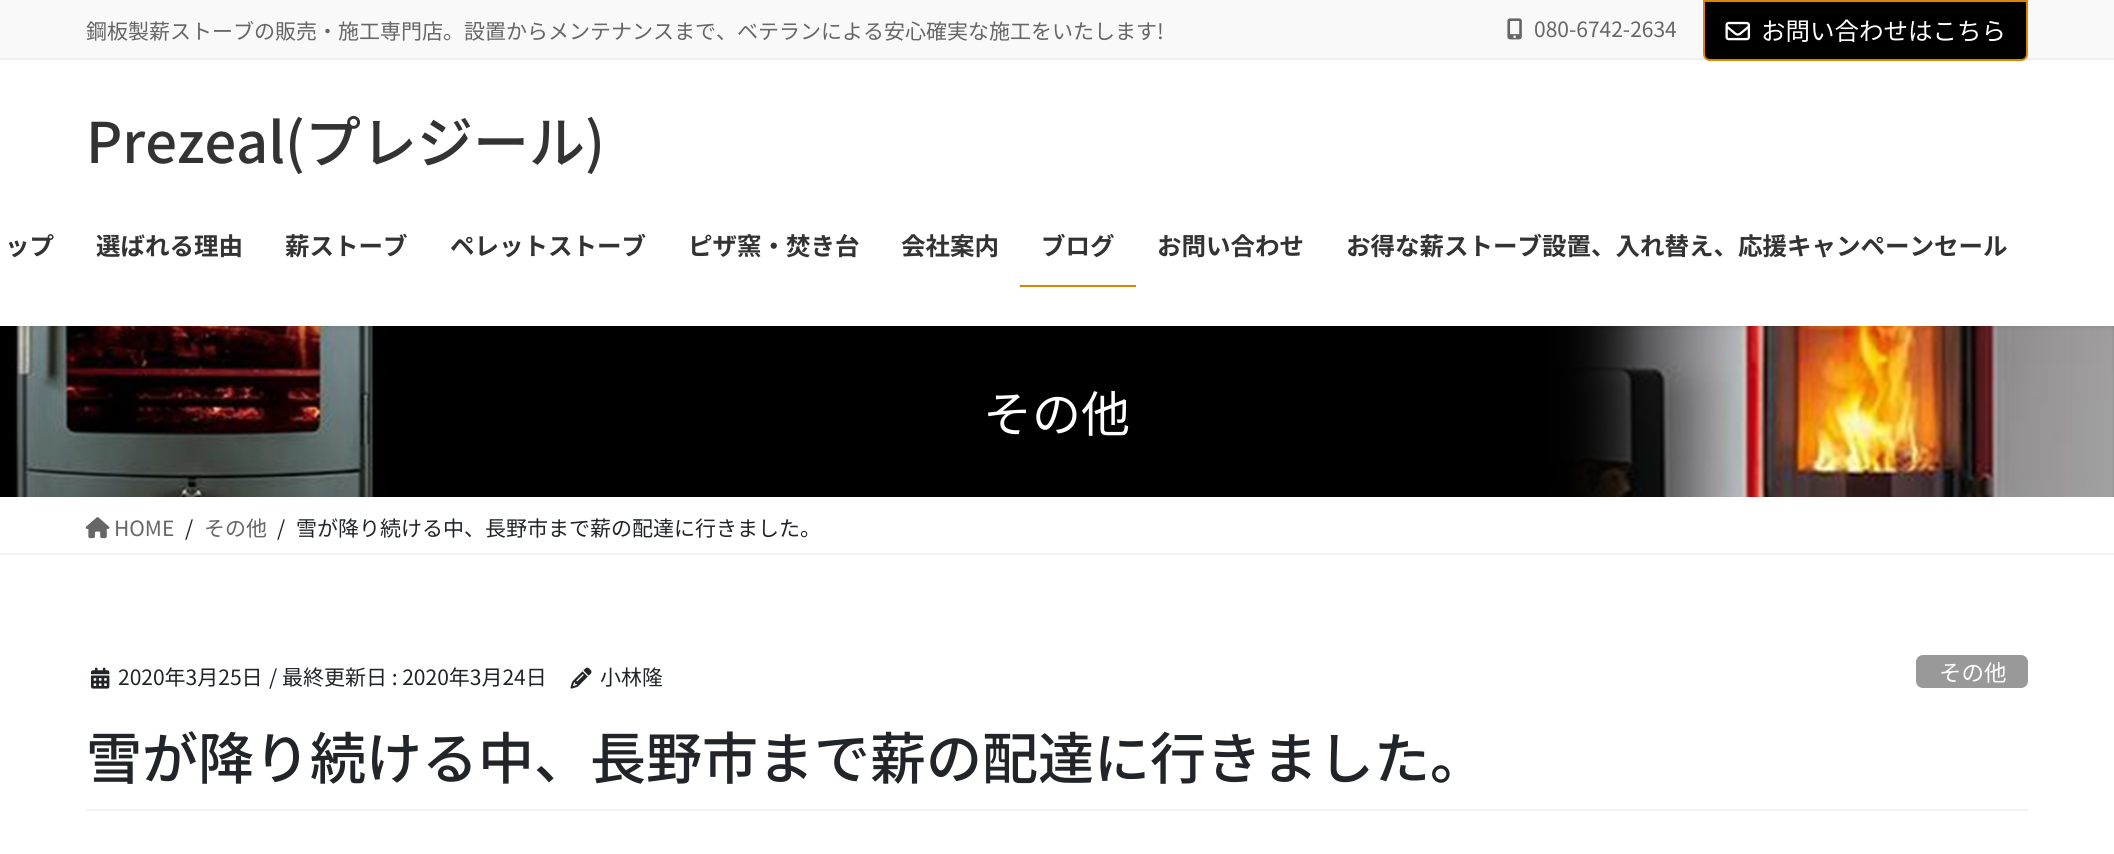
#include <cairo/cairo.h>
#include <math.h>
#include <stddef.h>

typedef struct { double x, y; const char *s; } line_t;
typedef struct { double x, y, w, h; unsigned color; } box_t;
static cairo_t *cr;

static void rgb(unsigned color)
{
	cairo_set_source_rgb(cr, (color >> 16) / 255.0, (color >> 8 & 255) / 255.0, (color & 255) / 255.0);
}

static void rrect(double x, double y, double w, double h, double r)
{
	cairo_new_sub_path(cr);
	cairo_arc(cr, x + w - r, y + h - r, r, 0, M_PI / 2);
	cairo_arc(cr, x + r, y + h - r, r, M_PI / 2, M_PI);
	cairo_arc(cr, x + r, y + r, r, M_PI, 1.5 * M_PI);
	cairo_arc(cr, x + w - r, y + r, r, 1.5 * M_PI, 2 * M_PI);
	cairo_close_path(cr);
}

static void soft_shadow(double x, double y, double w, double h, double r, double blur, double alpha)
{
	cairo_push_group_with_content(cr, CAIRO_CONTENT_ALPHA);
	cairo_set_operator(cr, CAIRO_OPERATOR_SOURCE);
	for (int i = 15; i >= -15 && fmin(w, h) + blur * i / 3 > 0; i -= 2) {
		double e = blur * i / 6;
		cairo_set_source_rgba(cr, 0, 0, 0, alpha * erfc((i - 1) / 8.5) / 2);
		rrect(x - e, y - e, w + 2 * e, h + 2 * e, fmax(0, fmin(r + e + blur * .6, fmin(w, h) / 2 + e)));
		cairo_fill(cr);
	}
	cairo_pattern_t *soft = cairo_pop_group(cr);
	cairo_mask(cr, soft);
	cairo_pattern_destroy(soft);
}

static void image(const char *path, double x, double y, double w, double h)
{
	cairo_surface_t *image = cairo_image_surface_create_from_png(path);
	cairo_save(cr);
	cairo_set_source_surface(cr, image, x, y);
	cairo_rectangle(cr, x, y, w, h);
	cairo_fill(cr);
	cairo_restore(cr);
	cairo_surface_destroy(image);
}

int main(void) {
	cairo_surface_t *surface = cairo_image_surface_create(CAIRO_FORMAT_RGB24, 2114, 854);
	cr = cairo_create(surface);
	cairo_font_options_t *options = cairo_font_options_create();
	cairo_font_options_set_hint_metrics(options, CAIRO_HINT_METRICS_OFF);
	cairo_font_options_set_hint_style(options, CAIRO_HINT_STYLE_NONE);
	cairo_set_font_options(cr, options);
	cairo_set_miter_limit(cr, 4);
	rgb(0xffffff);
	cairo_paint(cr);
	image("img/3.png", 0, 326, 2114, 171);
	rgb(0x000000);
	soft_shadow(0, -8, 2114, 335, 0, 2.5, 0.1);
	{
		static const box_t items[] = {
			{0, 60, 2114, 266, 0xffffff},
			{0, 0, 2114, 58, 0xf9f9f9},
			{0, 58, 2114, 2, 0xefefef},
		};
		for (size_t i = 0; i < sizeof items / sizeof *items; i++) {
			rgb(items[i].color);
			cairo_rectangle(cr, items[i].x, items[i].y, items[i].w, items[i].h);
			cairo_fill(cr);
		}
	}
	image("img/1.png", 1507, 18, 15, 22);
	rgb(0x000000);
	cairo_new_path(cr);
	cairo_move_to(cr, 1704, 1);
	cairo_line_to(cr, 2027, 1);
	cairo_line_to(cr, 2027, 54);
	cairo_curve_to(cr, 2027, 57.5, 2024.5, 60, 2021, 60);
	cairo_line_to(cr, 1710, 60);
	cairo_curve_to(cr, 1706.5, 60, 1704, 57.5, 1704, 54);
	cairo_close_path(cr);
	cairo_fill_preserve(cr);
	rgb(0xdd8500);
	cairo_stroke(cr);
	image("img/2.png", 1725, 21, 25, 20);
	cairo_rectangle(cr, 1020, 285, 116, 2);
	cairo_fill(cr);
	rgb(0xf2f2f2);
	cairo_rectangle(cr, 0, 553, 2114, 2);
	cairo_fill(cr);
	image("img/4.png", 85, 517, 25, 22);
	cairo_rectangle(cr, 86, 809, 1942, 2);
	cairo_fill(cr);
	image("img/5.png", 91, 667, 19, 22);
	image("img/6.png", 570, 667, 22, 22);
	rgb(0x999999);
	rrect(1916, 655, 112, 33, 7);
	cairo_fill(cr);
	cairo_select_font_face(cr, "Noto Sans JP", CAIRO_FONT_SLANT_NORMAL, CAIRO_FONT_WEIGHT_NORMAL);
	cairo_set_font_size(cr, 21);
	rgb(0x666666);
	cairo_move_to(cr, 86, 39);
	cairo_show_text(cr, "鋼板製薪ストーブの販売・施工専門店。設置からメンテナンスまで、ベテランによる安心確実な施工をいたします!");
	cairo_move_to(cr, 1534, 37);
	cairo_show_text(cr, "080-6742-2634");
	cairo_set_font_size(cr, 24.5);
	rgb(0xffffff);
	cairo_move_to(cr, 1761, 40);
	cairo_show_text(cr, "お問い合わせはこちら");
	cairo_select_font_face(cr, "Noto Sans JP Medium", CAIRO_FONT_SLANT_NORMAL, CAIRO_FONT_WEIGHT_NORMAL);
	cairo_set_font_size(cr, 56);
	rgb(0x333333);
	cairo_move_to(cr, 86, 163);
	cairo_show_text(cr, "Prezeal(プレジール)");
	cairo_select_font_face(cr, "Noto Sans JP", CAIRO_FONT_SLANT_NORMAL, CAIRO_FONT_WEIGHT_BOLD);
	cairo_set_font_size(cr, 24.5);
	{
		static const line_t items[] = {
			{5, 255, "ップ"},
			{96, 255, "選ばれる理由"},
			{285, 255, "薪ストーブ"},
			{450, 255, "ペレットストーブ"},
			{688, 255, "ピザ窯・焚き台"},
			{901, 255, "会社案内"},
			{1041, 255, "ブログ"},
			{1157, 255, "お問い合わせ"},
			{1346, 255, "お得な薪ストーブ設置、入れ替え、応援キャンペーンセール"},
		};
		for (size_t i = 0; i < sizeof items / sizeof *items; i++) {
			cairo_move_to(cr, items[i].x, items[i].y);
			cairo_show_text(cr, items[i].s);
		}
	}
	cairo_select_font_face(cr, "Noto Sans JP", CAIRO_FONT_SLANT_NORMAL, CAIRO_FONT_WEIGHT_NORMAL);
	cairo_set_font_size(cr, 49);
	rgb(0xffffff);
	cairo_move_to(cr, 983, 432);
	cairo_show_text(cr, "その他");
	cairo_set_font_size(cr, 21);
	rgb(0x666666);
	cairo_move_to(cr, 114, 536);
	cairo_show_text(cr, "HOME");
	rgb(0x212529);
	cairo_move_to(cr, 185, 536);
	cairo_show_text(cr, "/");
	rgb(0x666666);
	cairo_move_to(cr, 204, 536);
	cairo_show_text(cr, "その他");
	rgb(0x212529);
	{
		static const line_t items[] = {
			{277, 536, "/"},
			{296, 536, "雪が降り続ける中、長野市まで薪の配達に行きました。"},
			{118, 685, "2020年3月25日"},
			{269, 685, "/ 最終更新日 : 2020年3月24日"},
			{600, 685, "小林隆"},
		};
		for (size_t i = 0; i < sizeof items / sizeof *items; i++) {
			cairo_move_to(cr, items[i].x, items[i].y);
			cairo_show_text(cr, items[i].s);
		}
	}
	cairo_set_font_size(cr, 22.5);
	rgb(0xffffff);
	cairo_move_to(cr, 1939, 681);
	cairo_show_text(cr, "その他");
	cairo_select_font_face(cr, "Noto Sans JP Medium", CAIRO_FONT_SLANT_NORMAL, CAIRO_FONT_WEIGHT_NORMAL);
	cairo_set_font_size(cr, 56);
	rgb(0x212529);
	cairo_move_to(cr, 86, 779);
	cairo_show_text(cr, "雪が降り続ける中、長野市まで薪の配達に行きました。");
	cairo_surface_write_to_png(surface, "page.png");
	cairo_font_options_destroy(options);
	cairo_destroy(cr);
	cairo_surface_destroy(surface);
	return 0;
}
